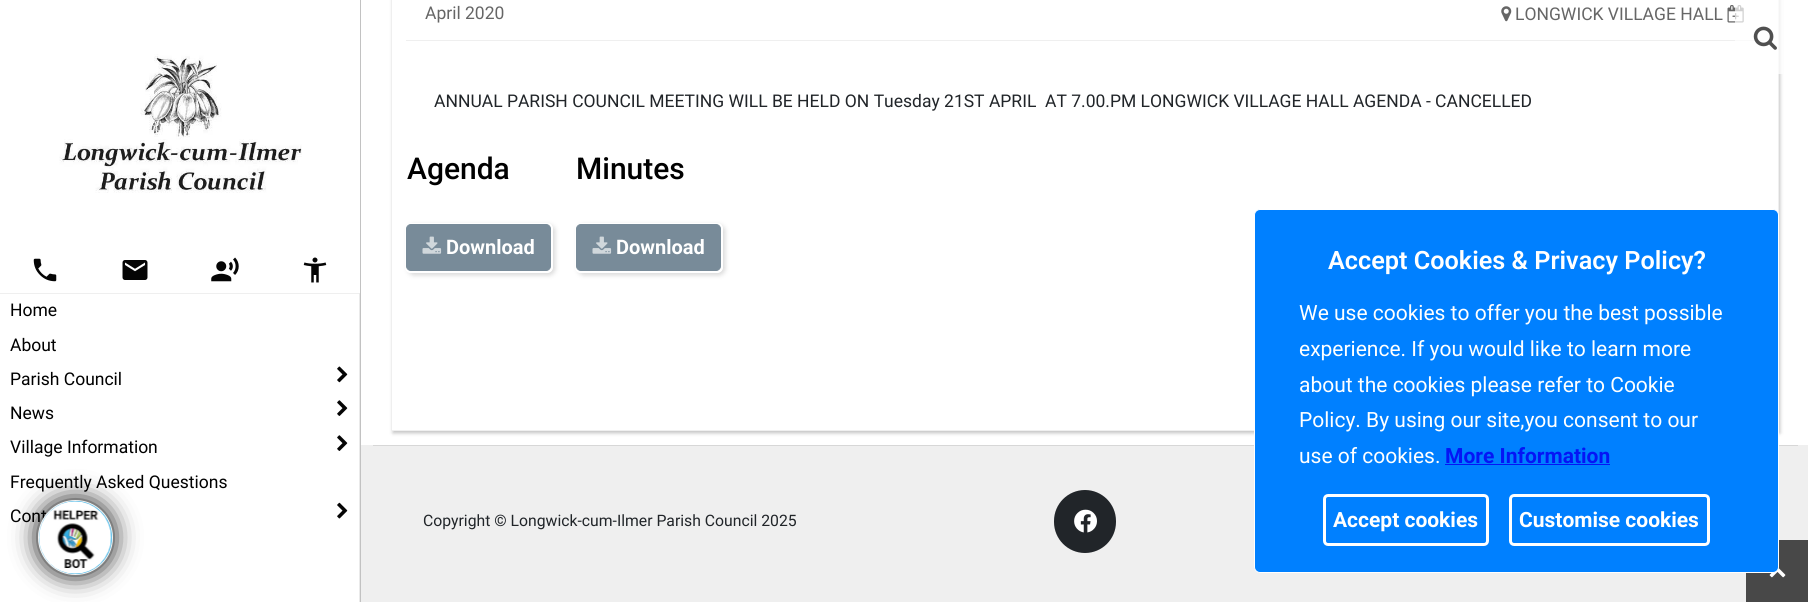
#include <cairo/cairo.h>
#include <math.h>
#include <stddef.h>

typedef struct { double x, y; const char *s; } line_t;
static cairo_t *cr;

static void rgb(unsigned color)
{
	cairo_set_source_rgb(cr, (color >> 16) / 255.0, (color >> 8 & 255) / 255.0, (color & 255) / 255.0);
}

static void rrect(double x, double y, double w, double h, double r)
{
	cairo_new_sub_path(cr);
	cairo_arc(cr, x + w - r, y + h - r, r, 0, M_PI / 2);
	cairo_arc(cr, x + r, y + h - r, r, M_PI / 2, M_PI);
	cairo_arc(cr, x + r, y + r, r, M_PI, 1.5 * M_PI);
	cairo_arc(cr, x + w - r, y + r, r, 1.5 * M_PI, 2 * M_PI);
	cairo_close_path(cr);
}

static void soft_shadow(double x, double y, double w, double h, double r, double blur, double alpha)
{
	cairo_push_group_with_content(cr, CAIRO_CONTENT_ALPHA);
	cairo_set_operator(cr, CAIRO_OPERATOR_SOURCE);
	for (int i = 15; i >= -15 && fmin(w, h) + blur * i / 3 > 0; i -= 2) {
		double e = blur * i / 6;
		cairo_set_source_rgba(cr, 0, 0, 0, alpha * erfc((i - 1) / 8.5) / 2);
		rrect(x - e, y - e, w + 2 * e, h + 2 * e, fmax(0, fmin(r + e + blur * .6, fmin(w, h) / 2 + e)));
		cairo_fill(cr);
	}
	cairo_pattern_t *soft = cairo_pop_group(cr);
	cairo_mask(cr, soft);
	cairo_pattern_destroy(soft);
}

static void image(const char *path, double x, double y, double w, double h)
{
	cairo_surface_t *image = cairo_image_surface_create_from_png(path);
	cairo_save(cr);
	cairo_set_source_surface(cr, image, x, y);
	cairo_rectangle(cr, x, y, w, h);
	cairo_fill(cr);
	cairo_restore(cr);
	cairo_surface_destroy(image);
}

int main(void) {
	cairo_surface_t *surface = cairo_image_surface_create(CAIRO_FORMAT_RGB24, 1808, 602);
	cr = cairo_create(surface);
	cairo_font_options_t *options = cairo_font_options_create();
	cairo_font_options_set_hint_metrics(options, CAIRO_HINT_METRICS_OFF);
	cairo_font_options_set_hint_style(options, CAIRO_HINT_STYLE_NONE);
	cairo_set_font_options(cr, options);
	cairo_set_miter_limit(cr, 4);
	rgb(0xffffff);
	cairo_paint(cr);
	cairo_save(cr);
	cairo_set_fill_rule(cr, CAIRO_FILL_RULE_EVEN_ODD);
	cairo_new_path(cr);
	cairo_move_to(cr, 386, 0);
	cairo_line_to(cr, 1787, 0);
	cairo_line_to(cr, 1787, 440);
	cairo_line_to(cr, 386, 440);
	cairo_close_path(cr);
	cairo_move_to(cr, 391, -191);
	cairo_line_to(cr, 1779, -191);
	cairo_line_to(cr, 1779, 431);
	cairo_line_to(cr, 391, 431);
	cairo_close_path(cr);
	cairo_clip(cr);
	rgb(0x000000);
	soft_shadow(393, -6, 1387, 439, 0, 2, 0.25);
	cairo_restore(cr);
	cairo_rectangle(cr, 391.5, -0.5, 1387, 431);
	rgb(0xefefef);
	cairo_set_line_width(cr, 1);
	cairo_stroke(cr);
	cairo_rectangle(cr, 406, 40, 1358, 1);
	cairo_fill(cr);
	image("img/1.png", 1501, 6, 11, 16);
	image("img/2.png", 1727, 5, 17, 18);
	rgb(0x788b99);
	rrect(406.5, 224.5, 144, 46, 4.5);
	cairo_fill_preserve(cr);
	cairo_stroke(cr);
	image("img/3.png", 422, 236, 20, 18);
	cairo_save(cr);
	cairo_set_fill_rule(cr, CAIRO_FILL_RULE_EVEN_ODD);
	cairo_new_path(cr);
	cairo_move_to(cr, 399, 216);
	cairo_line_to(cr, 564, 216);
	cairo_line_to(cr, 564, 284);
	cairo_line_to(cr, 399, 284);
	cairo_close_path(cr);
	cairo_move_to(cr, 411, 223);
	cairo_line_to(cr, 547, 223);
	cairo_curve_to(cr, 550.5, 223, 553, 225.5, 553, 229);
	cairo_line_to(cr, 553, 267);
	cairo_curve_to(cr, 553, 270.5, 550.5, 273, 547, 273);
	cairo_line_to(cr, 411, 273);
	cairo_curve_to(cr, 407.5, 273, 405, 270.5, 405, 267);
	cairo_line_to(cr, 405, 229);
	cairo_curve_to(cr, 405, 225.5, 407.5, 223, 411, 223);
	cairo_close_path(cr);
	cairo_clip(cr);
	rgb(0x595959);
	soft_shadow(408, 225, 147, 50, 6, 2.5, 0.25);
	cairo_restore(cr);
	rrect(576.5, 224.5, 144, 46, 4.5);
	cairo_fill_preserve(cr);
	cairo_stroke(cr);
	image("img/3.png", 592, 236, 20, 18);
	cairo_save(cr);
	cairo_set_fill_rule(cr, CAIRO_FILL_RULE_EVEN_ODD);
	cairo_new_path(cr);
	cairo_move_to(cr, 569, 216);
	cairo_line_to(cr, 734, 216);
	cairo_line_to(cr, 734, 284);
	cairo_line_to(cr, 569, 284);
	cairo_close_path(cr);
	cairo_move_to(cr, 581, 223);
	cairo_line_to(cr, 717, 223);
	cairo_curve_to(cr, 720.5, 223, 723, 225.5, 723, 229);
	cairo_line_to(cr, 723, 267);
	cairo_curve_to(cr, 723, 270.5, 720.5, 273, 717, 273);
	cairo_line_to(cr, 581, 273);
	cairo_curve_to(cr, 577.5, 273, 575, 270.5, 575, 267);
	cairo_line_to(cr, 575, 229);
	cairo_curve_to(cr, 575, 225.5, 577.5, 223, 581, 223);
	cairo_close_path(cr);
	cairo_clip(cr);
	rgb(0x595959);
	soft_shadow(578, 225, 147, 50, 6, 2.5, 0.25);
	cairo_restore(cr);
	cairo_set_source_rgba(cr, 1, 1, 1, 0.7);
	cairo_rectangle(cr, 1735, 0, 48, 74);
	cairo_fill(cr);
	image("img/4.png", 1753, 26, 24, 24);
	rgb(0xc2c2c2);
	cairo_rectangle(cr, 360, 0, 1, 602);
	cairo_fill(cr);
	image("img/5.png", 59, 54, 243, 139);
	image("img/6.png", 33, 258, 24, 24);
	image("img/7.png", 122, 260, 26, 20);
	image("img/8.png", 211, 257, 28, 25);
	image("img/9.png", 303, 257, 24, 26);
	rgb(0xefefef);
	cairo_rectangle(cr, 0, 293, 360, 1);
	cairo_fill(cr);
	rgb(0xeaeaea);
	cairo_rectangle(cr, 359, 293, 1, 309);
	cairo_fill(cr);
	image("img/10.png", 337, 366, 11, 17);
	image("img/11.png", 337, 400, 11, 16);
	image("img/11.png", 337, 435, 11, 16);
	image("img/12.png", 337, 502, 11, 17);
	rgb(0xefefef);
	cairo_rectangle(cr, 361, 445, 1447, 157);
	cairo_fill(cr);
	rgb(0x484848);
	cairo_rectangle(cr, 1746, 540, 62, 62);
	cairo_fill(cr);
	image("img/13.png", 1769, 567, 17, 11);
	rgb(0x000000);
	soft_shadow(38, 500, 75, 75, 37.5, 12.5, 1);
	rgb(0xd7d7d7);
	cairo_rectangle(cr, 373, 445, 1425, 1);
	cairo_fill(cr);
	rgb(0x212529);
	rrect(1054, 490, 62, 63, 31);
	cairo_fill(cr);
	image("img/15.png", 1074, 509, 23, 24);
	rgb(0x0080ff);
	rrect(1254.5, 209.5, 524, 363, 5.5);
	cairo_fill_preserve(cr);
	rgb(0xffffff);
	cairo_stroke(cr);
	rgb(0x0515f5);
	cairo_rectangle(cr, 1445, 464, 165, 1);
	cairo_fill(cr);
	rrect(1324.5, 495.5, 163, 49, 3.5);
	rgb(0xffffff);
	cairo_set_line_width(cr, 3);
	cairo_stroke(cr);
	rrect(1510.5, 495.5, 198, 49, 3.5);
	cairo_stroke(cr);
	cairo_select_font_face(cr, "Roboto", CAIRO_FONT_SLANT_NORMAL, CAIRO_FONT_WEIGHT_NORMAL);
	cairo_set_font_size(cr, 17.5);
	rgb(0x666666);
	cairo_move_to(cr, 425, 19);
	cairo_show_text(cr, "April 2020");
	cairo_move_to(cr, 1515, 20);
	cairo_show_text(cr, "LONGWICK VILLAGE HALL");
	rgb(0x212529);
	cairo_move_to(cr, 434, 107);
	cairo_show_text(cr, "ANNUAL PARISH COUNCIL MEETING WILL BE HELD ON Tuesday 21ST APRIL  AT 7.00.PM LONGWICK VILLAGE HALL AGENDA - CANCELLED");
	cairo_select_font_face(cr, "Roboto Medium", CAIRO_FONT_SLANT_NORMAL, CAIRO_FONT_WEIGHT_NORMAL);
	cairo_set_font_size(cr, 30);
	rgb(0x000000);
	cairo_move_to(cr, 407, 179);
	cairo_show_text(cr, "Agenda");
	cairo_select_font_face(cr, "Roboto", CAIRO_FONT_SLANT_NORMAL, CAIRO_FONT_WEIGHT_BOLD);
	cairo_set_font_size(cr, 20);
	rgb(0xffffff);
	cairo_move_to(cr, 446, 254);
	cairo_show_text(cr, "Download");
	cairo_select_font_face(cr, "Roboto Medium", CAIRO_FONT_SLANT_NORMAL, CAIRO_FONT_WEIGHT_NORMAL);
	cairo_set_font_size(cr, 30);
	rgb(0x000000);
	cairo_move_to(cr, 576, 179);
	cairo_show_text(cr, "Minutes");
	cairo_select_font_face(cr, "Roboto", CAIRO_FONT_SLANT_NORMAL, CAIRO_FONT_WEIGHT_BOLD);
	cairo_set_font_size(cr, 20);
	rgb(0xffffff);
	cairo_move_to(cr, 616, 254);
	cairo_show_text(cr, "Download");
	cairo_select_font_face(cr, "Roboto", CAIRO_FONT_SLANT_NORMAL, CAIRO_FONT_WEIGHT_NORMAL);
	cairo_set_font_size(cr, 17.5);
	rgb(0x000000);
	{
		static const line_t items[] = {
			{10, 316, "Home"},
			{10, 351, "About"},
			{10, 385, "Parish Council"},
			{10, 419, "News"},
			{10, 453, "Village Information"},
			{10, 488, "Frequently Asked Questions"},
			{10, 522, "Cont"},
		};
		for (size_t i = 0; i < sizeof items / sizeof *items; i++) {
			cairo_move_to(cr, items[i].x, items[i].y);
			cairo_show_text(cr, items[i].s);
		}
	}
	rgb(0x36b0e5);
	cairo_new_path(cr);
	cairo_arc(cr, 75.5, 537.5, 37, 0, 2 * M_PI);
	cairo_fill_preserve(cr);
	rgb(0xf2f2f2);
	cairo_set_line_width(cr, 1);
	cairo_stroke(cr);
	image("img/14.png", 38, 501, 74, 73);
	cairo_set_font_size(cr, 15.75);
	rgb(0x212529);
	cairo_move_to(cr, 423, 526);
	cairo_show_text(cr, "Copyright © Longwick-cum-Ilmer Parish Council 2025");
	cairo_select_font_face(cr, "Roboto SemiBold", CAIRO_FONT_SLANT_NORMAL, CAIRO_FONT_WEIGHT_NORMAL);
	cairo_set_font_size(cr, 25.25);
	rgb(0xffffff);
	cairo_move_to(cr, 1328, 269);
	cairo_show_text(cr, "Accept Cookies & Privacy Policy?");
	cairo_select_font_face(cr, "Roboto", CAIRO_FONT_SLANT_NORMAL, CAIRO_FONT_WEIGHT_NORMAL);
	cairo_set_font_size(cr, 21);
	{
		static const line_t items[] = {
			{1299, 320, "We use cookies to offer you the best possible"},
			{1299, 356, "experience. If you would like to learn more"},
			{1299, 392, "about the cookies please refer to Cookie"},
			{1299, 427, "Policy. By using our site,you consent to our"},
			{1299, 463, "use of cookies."},
		};
		for (size_t i = 0; i < sizeof items / sizeof *items; i++) {
			cairo_move_to(cr, items[i].x, items[i].y);
			cairo_show_text(cr, items[i].s);
		}
	}
	cairo_select_font_face(cr, "Roboto", CAIRO_FONT_SLANT_NORMAL, CAIRO_FONT_WEIGHT_BOLD);
	rgb(0x0515f5);
	cairo_move_to(cr, 1445, 463);
	cairo_show_text(cr, "More Information");
	rgb(0xffffff);
	cairo_move_to(cr, 1333, 527);
	cairo_show_text(cr, "Accept cookies");
	cairo_move_to(cr, 1519, 527);
	cairo_show_text(cr, "Customise cookies");
	cairo_surface_write_to_png(surface, "page.png");
	cairo_font_options_destroy(options);
	cairo_destroy(cr);
	cairo_surface_destroy(surface);
	return 0;
}
